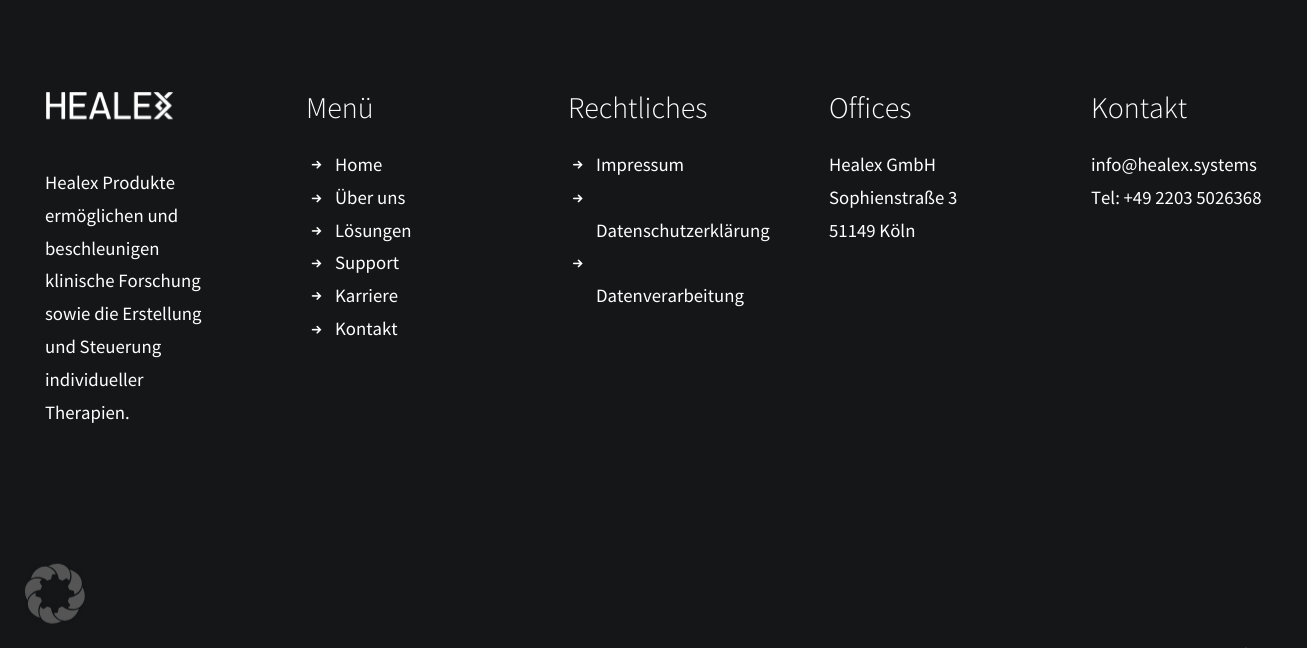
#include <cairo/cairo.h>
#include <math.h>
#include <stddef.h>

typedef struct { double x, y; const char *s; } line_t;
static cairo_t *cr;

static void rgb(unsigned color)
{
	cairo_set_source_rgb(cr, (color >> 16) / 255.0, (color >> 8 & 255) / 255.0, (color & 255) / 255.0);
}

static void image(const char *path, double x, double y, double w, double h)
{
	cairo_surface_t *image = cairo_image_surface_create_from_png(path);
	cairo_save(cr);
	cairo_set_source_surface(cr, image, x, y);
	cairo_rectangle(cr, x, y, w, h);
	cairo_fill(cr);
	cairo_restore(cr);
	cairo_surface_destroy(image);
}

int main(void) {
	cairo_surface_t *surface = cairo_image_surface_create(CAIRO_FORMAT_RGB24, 1307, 648);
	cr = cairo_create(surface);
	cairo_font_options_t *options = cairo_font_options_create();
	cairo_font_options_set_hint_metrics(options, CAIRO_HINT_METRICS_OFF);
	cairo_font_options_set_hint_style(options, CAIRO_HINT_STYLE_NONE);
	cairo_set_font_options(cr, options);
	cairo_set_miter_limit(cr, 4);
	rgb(0x141618);
	cairo_paint(cr);
	image("img/1.png", 46, 92, 127, 28);
	image("img/2.png", 311, 160, 11, 9);
	image("img/3.png", 311, 194, 11, 9);
	image("img/4.png", 311, 227, 11, 8);
	image("img/3.png", 311, 259, 11, 9);
	image("img/4.png", 311, 292, 11, 8);
	image("img/2.png", 311, 325, 11, 9);
	image("img/5.png", 573, 160, 10, 9);
	image("img/6.png", 573, 194, 10, 9);
	image("img/6.png", 573, 259, 10, 9);
	image("img/7.png", 1245, 647, 2, 1);
	image("img/8.png", 25, 563, 60, 61);
	cairo_select_font_face(cr, "Source Sans Pro", CAIRO_FONT_SLANT_NORMAL, CAIRO_FONT_WEIGHT_NORMAL);
	cairo_set_font_size(cr, 18.75);
	rgb(0xffffff);
	{
		static const line_t items[] = {
			{45, 189, "Healex Produkte"},
			{45, 222, "ermöglichen und"},
			{45, 255, "beschleunigen"},
			{45, 287, "klinische Forschung"},
			{45, 320, "sowie die Erstellung"},
			{45, 353, "und Steuerung"},
			{45, 386, "individueller"},
			{45, 419, "Therapien."},
		};
		for (size_t i = 0; i < sizeof items / sizeof *items; i++) {
			cairo_move_to(cr, items[i].x, items[i].y);
			cairo_show_text(cr, items[i].s);
		}
	}
	cairo_select_font_face(cr, "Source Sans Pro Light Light", CAIRO_FONT_SLANT_NORMAL, CAIRO_FONT_WEIGHT_NORMAL);
	cairo_set_font_size(cr, 30);
	cairo_move_to(cr, 306, 118);
	cairo_show_text(cr, "Menü");
	cairo_select_font_face(cr, "Source Sans Pro", CAIRO_FONT_SLANT_NORMAL, CAIRO_FONT_WEIGHT_NORMAL);
	cairo_set_font_size(cr, 18.75);
	{
		static const line_t items[] = {
			{335, 171, "Home"},
			{335, 204, "Über uns"},
			{335, 237, "Lösungen"},
			{335, 269, "Support"},
			{335, 302, "Karriere"},
			{335, 335, "Kontakt"},
		};
		for (size_t i = 0; i < sizeof items / sizeof *items; i++) {
			cairo_move_to(cr, items[i].x, items[i].y);
			cairo_show_text(cr, items[i].s);
		}
	}
	cairo_select_font_face(cr, "Source Sans Pro Light Light", CAIRO_FONT_SLANT_NORMAL, CAIRO_FONT_WEIGHT_NORMAL);
	cairo_set_font_size(cr, 30);
	cairo_move_to(cr, 568, 118);
	cairo_show_text(cr, "Rechtliches");
	cairo_select_font_face(cr, "Source Sans Pro", CAIRO_FONT_SLANT_NORMAL, CAIRO_FONT_WEIGHT_NORMAL);
	cairo_set_font_size(cr, 18.75);
	{
		static const line_t items[] = {
			{596, 171, "Impressum"},
			{596, 237, "Datenschutzerklärung"},
			{596, 302, "Datenverarbeitung"},
		};
		for (size_t i = 0; i < sizeof items / sizeof *items; i++) {
			cairo_move_to(cr, items[i].x, items[i].y);
			cairo_show_text(cr, items[i].s);
		}
	}
	cairo_select_font_face(cr, "Source Sans Pro Light Light", CAIRO_FONT_SLANT_NORMAL, CAIRO_FONT_WEIGHT_NORMAL);
	cairo_set_font_size(cr, 30);
	cairo_move_to(cr, 829, 118);
	cairo_show_text(cr, "Offices");
	cairo_select_font_face(cr, "Source Sans Pro", CAIRO_FONT_SLANT_NORMAL, CAIRO_FONT_WEIGHT_NORMAL);
	cairo_set_font_size(cr, 18.75);
	{
		static const line_t items[] = {
			{829, 171, "Healex GmbH"},
			{829, 204, "Sophienstraße 3"},
			{829, 237, "51149 Köln"},
		};
		for (size_t i = 0; i < sizeof items / sizeof *items; i++) {
			cairo_move_to(cr, items[i].x, items[i].y);
			cairo_show_text(cr, items[i].s);
		}
	}
	cairo_select_font_face(cr, "Source Sans Pro Light Light", CAIRO_FONT_SLANT_NORMAL, CAIRO_FONT_WEIGHT_NORMAL);
	cairo_set_font_size(cr, 30);
	cairo_move_to(cr, 1091, 118);
	cairo_show_text(cr, "Kontakt");
	cairo_select_font_face(cr, "Source Sans Pro", CAIRO_FONT_SLANT_NORMAL, CAIRO_FONT_WEIGHT_NORMAL);
	cairo_set_font_size(cr, 18.75);
	cairo_move_to(cr, 1091, 171);
	cairo_show_text(cr, "info@healex.systems");
	cairo_move_to(cr, 1091, 204);
	cairo_show_text(cr, "Tel: +49 2203 5026368");
	cairo_surface_write_to_png(surface, "page.png");
	cairo_font_options_destroy(options);
	cairo_destroy(cr);
	cairo_surface_destroy(surface);
	return 0;
}
